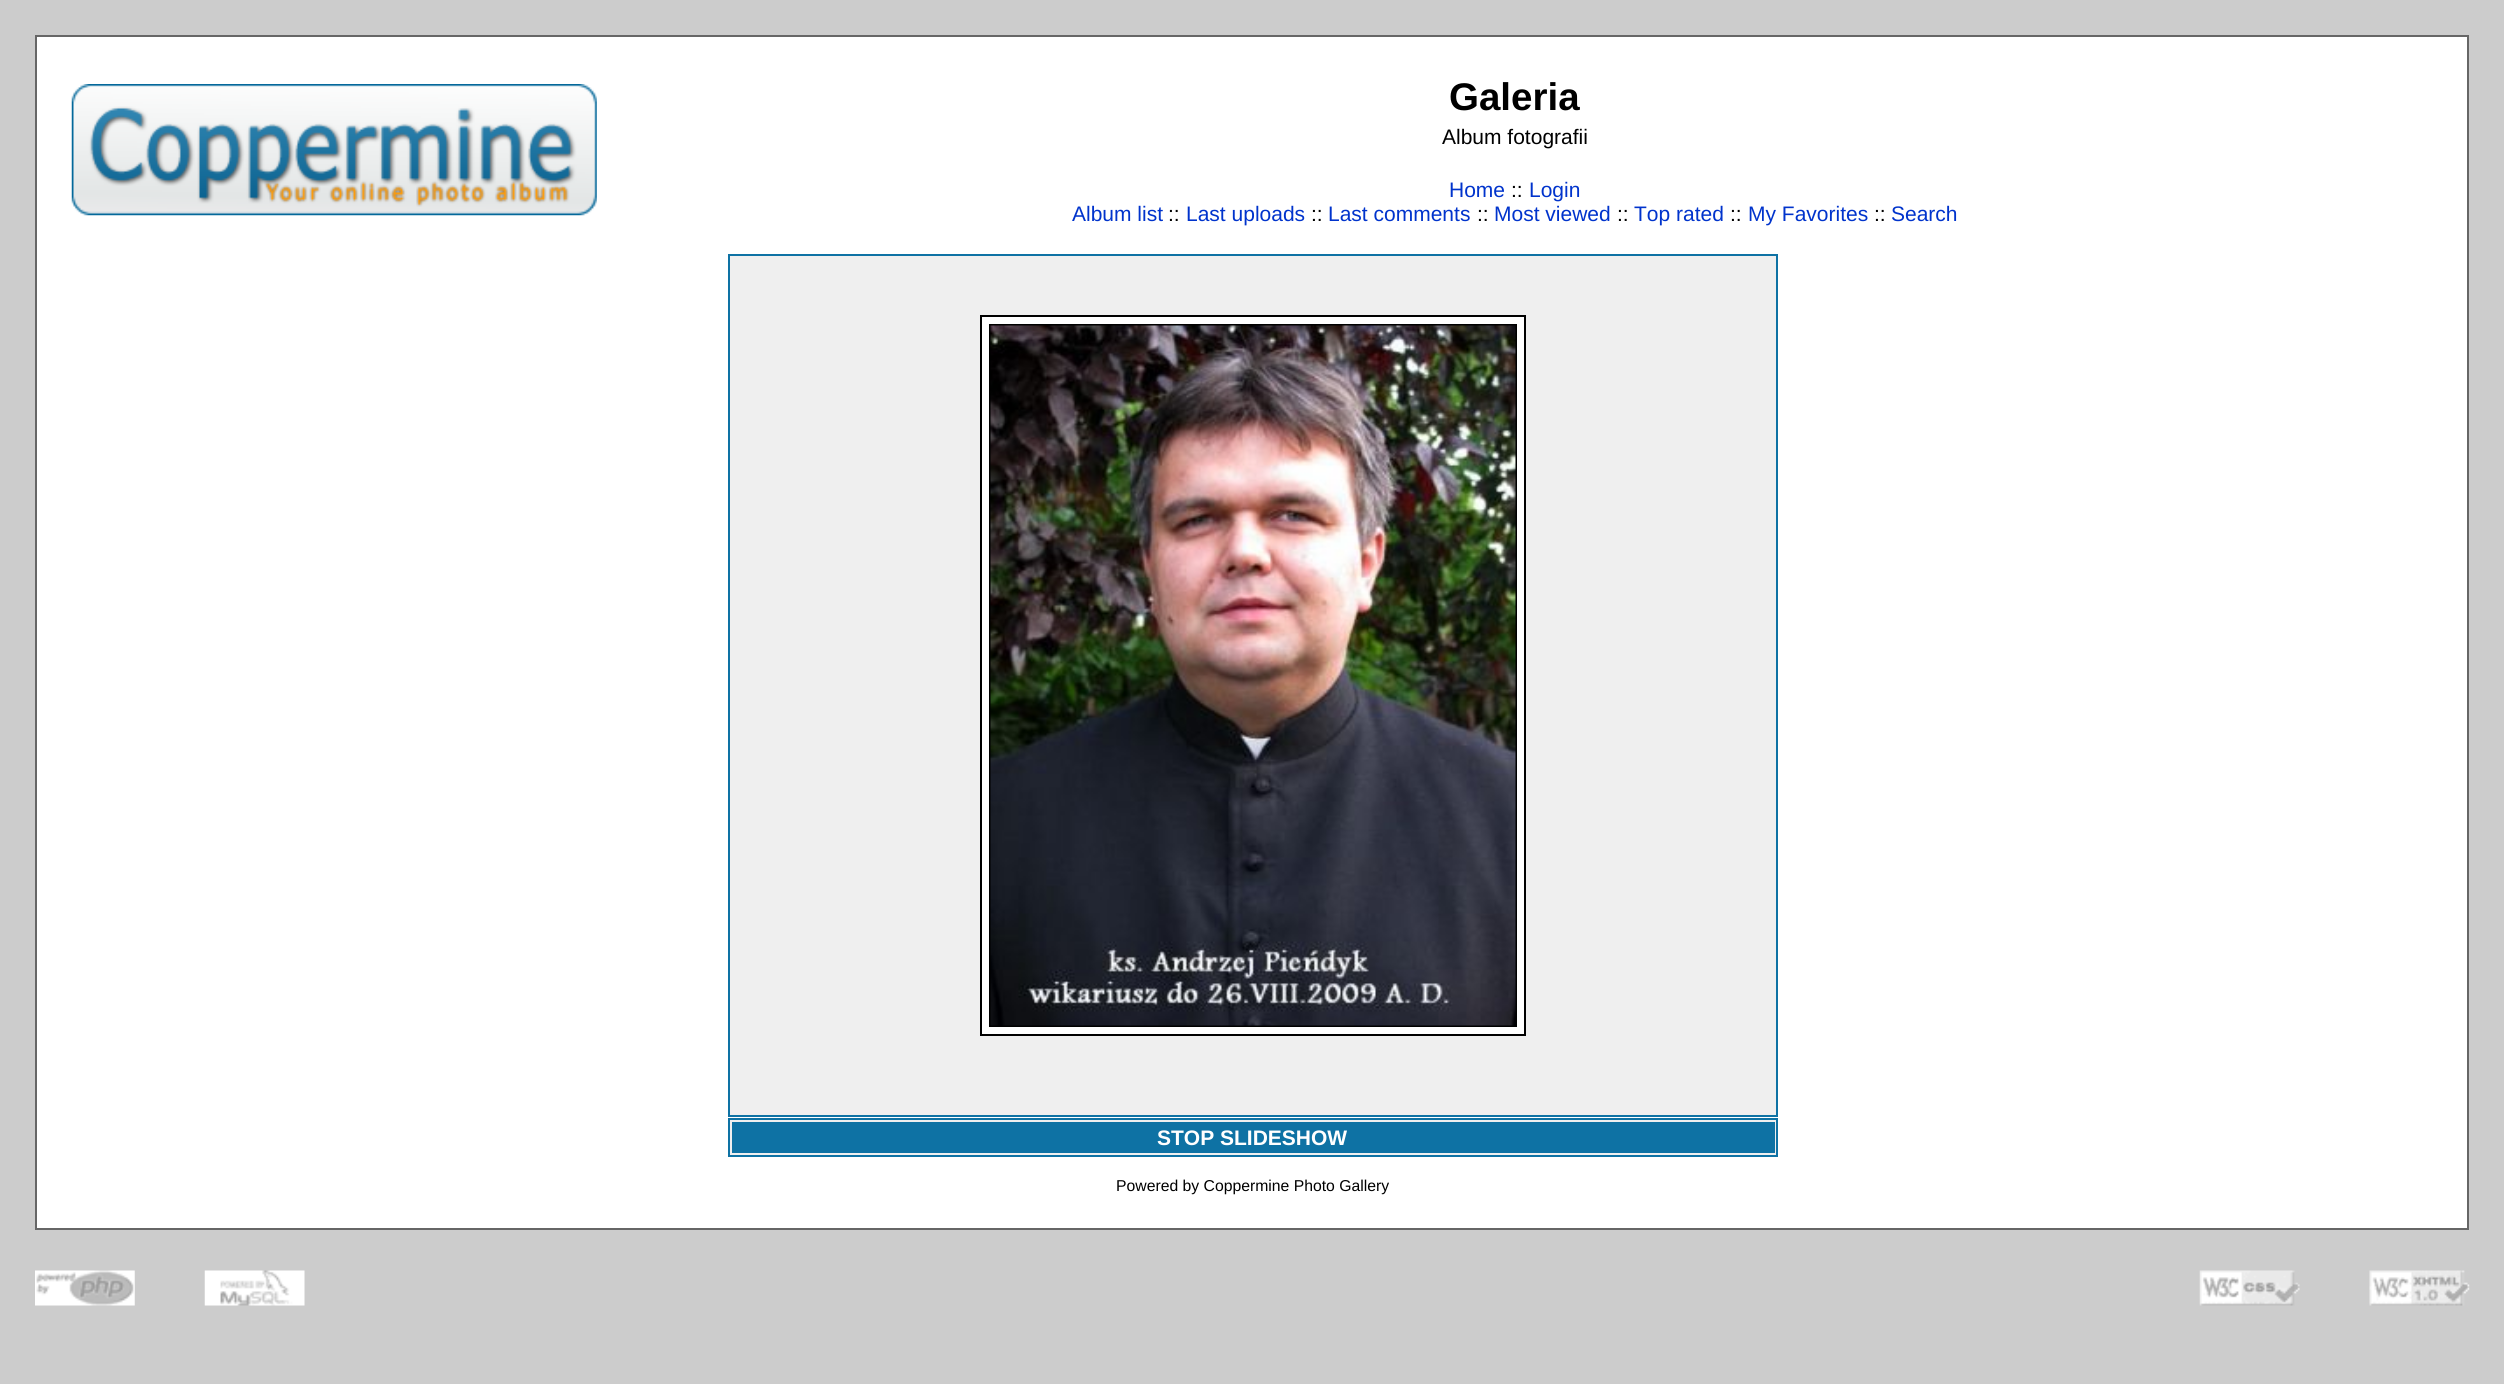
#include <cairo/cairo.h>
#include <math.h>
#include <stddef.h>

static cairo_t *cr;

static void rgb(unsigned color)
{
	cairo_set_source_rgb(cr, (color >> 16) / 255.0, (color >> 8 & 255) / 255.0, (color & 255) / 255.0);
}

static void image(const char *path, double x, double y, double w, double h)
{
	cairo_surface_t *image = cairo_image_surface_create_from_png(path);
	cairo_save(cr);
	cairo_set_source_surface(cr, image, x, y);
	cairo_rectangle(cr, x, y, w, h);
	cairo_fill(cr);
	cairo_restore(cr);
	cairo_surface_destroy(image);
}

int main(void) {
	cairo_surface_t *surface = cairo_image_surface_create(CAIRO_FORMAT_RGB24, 2504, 1384);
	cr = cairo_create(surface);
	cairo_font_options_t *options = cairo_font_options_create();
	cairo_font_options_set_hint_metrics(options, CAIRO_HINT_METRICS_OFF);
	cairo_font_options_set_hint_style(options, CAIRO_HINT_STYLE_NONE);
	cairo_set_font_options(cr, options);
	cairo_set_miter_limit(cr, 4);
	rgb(0xcccccc);
	cairo_paint(cr);
	rgb(0xffffff);
	cairo_rectangle(cr, 36, 36, 2432, 1193);
	cairo_fill_preserve(cr);
	rgb(0x666666);
	cairo_stroke(cr);
	image("img/1.png", 71, 84, 526, 132);
	rgb(0xefefef);
	cairo_rectangle(cr, 729, 255, 1048, 861);
	cairo_fill_preserve(cr);
	rgb(0x0e72a4);
	cairo_stroke(cr);
	rgb(0xffffff);
	cairo_rectangle(cr, 981, 316, 544, 719);
	cairo_fill_preserve(cr);
	rgb(0x000000);
	cairo_stroke(cr);
	cairo_rectangle(cr, 990, 325, 526, 701);
	cairo_stroke(cr);
	image("img/2.png", 990, 325, 526, 701);
	rgb(0xefefef);
	cairo_rectangle(cr, 729, 1119, 1048, 37);
	cairo_fill_preserve(cr);
	rgb(0x0e72a4);
	cairo_stroke(cr);
	cairo_rectangle(cr, 732, 1122, 1043, 31);
	cairo_fill(cr);
	image("img/3.png", 35, 1270, 100, 36);
	image("img/4.png", 204, 1270, 101, 36);
	image("img/5.png", 2199, 1270, 101, 36);
	image("img/6.png", 2369, 1270, 101, 36);
	cairo_select_font_face(cr, "Liberation Sans", CAIRO_FONT_SLANT_NORMAL, CAIRO_FONT_WEIGHT_BOLD);
	cairo_set_font_size(cr, 38.5);
	rgb(0x000000);
	cairo_move_to(cr, 1449, 110);
	cairo_show_text(cr, "Galeria");
	cairo_select_font_face(cr, "Liberation Sans", CAIRO_FONT_SLANT_NORMAL, CAIRO_FONT_WEIGHT_NORMAL);
	cairo_set_font_size(cr, 21);
	cairo_move_to(cr, 1442, 144);
	cairo_show_text(cr, "Album fotografii");
	rgb(0x0033cc);
	cairo_move_to(cr, 1449, 197);
	cairo_show_text(cr, "Home");
	rgb(0x000000);
	cairo_move_to(cr, 1511, 197);
	cairo_show_text(cr, "::");
	rgb(0x0033cc);
	cairo_move_to(cr, 1529, 197);
	cairo_show_text(cr, "Login");
	cairo_move_to(cr, 1072, 221);
	cairo_show_text(cr, "Album list");
	rgb(0x000000);
	cairo_move_to(cr, 1168, 221);
	cairo_show_text(cr, "::");
	rgb(0x0033cc);
	cairo_move_to(cr, 1186, 221);
	cairo_show_text(cr, "Last uploads");
	rgb(0x000000);
	cairo_move_to(cr, 1311, 221);
	cairo_show_text(cr, "::");
	rgb(0x0033cc);
	cairo_move_to(cr, 1328, 221);
	cairo_show_text(cr, "Last comments");
	rgb(0x000000);
	cairo_move_to(cr, 1477, 221);
	cairo_show_text(cr, "::");
	rgb(0x0033cc);
	cairo_move_to(cr, 1494, 221);
	cairo_show_text(cr, "Most viewed");
	rgb(0x000000);
	cairo_move_to(cr, 1617, 221);
	cairo_show_text(cr, "::");
	rgb(0x0033cc);
	cairo_move_to(cr, 1634, 221);
	cairo_show_text(cr, "Top rated");
	rgb(0x000000);
	cairo_move_to(cr, 1730, 221);
	cairo_show_text(cr, "::");
	rgb(0x0033cc);
	cairo_move_to(cr, 1748, 221);
	cairo_show_text(cr, "My Favorites");
	rgb(0x000000);
	cairo_move_to(cr, 1874, 221);
	cairo_show_text(cr, "::");
	rgb(0x0033cc);
	cairo_move_to(cr, 1891, 221);
	cairo_show_text(cr, "Search");
	cairo_select_font_face(cr, "Liberation Sans", CAIRO_FONT_SLANT_NORMAL, CAIRO_FONT_WEIGHT_BOLD);
	rgb(0xffffff);
	cairo_move_to(cr, 1157, 1145);
	cairo_show_text(cr, "STOP SLIDESHOW");
	cairo_select_font_face(cr, "Liberation Sans", CAIRO_FONT_SLANT_NORMAL, CAIRO_FONT_WEIGHT_NORMAL);
	cairo_set_font_size(cr, 15.75);
	rgb(0x000000);
	cairo_move_to(cr, 1116, 1191);
	cairo_show_text(cr, "Powered by Coppermine Photo Gallery");
	cairo_surface_write_to_png(surface, "page.png");
	cairo_font_options_destroy(options);
	cairo_destroy(cr);
	cairo_surface_destroy(surface);
	return 0;
}
